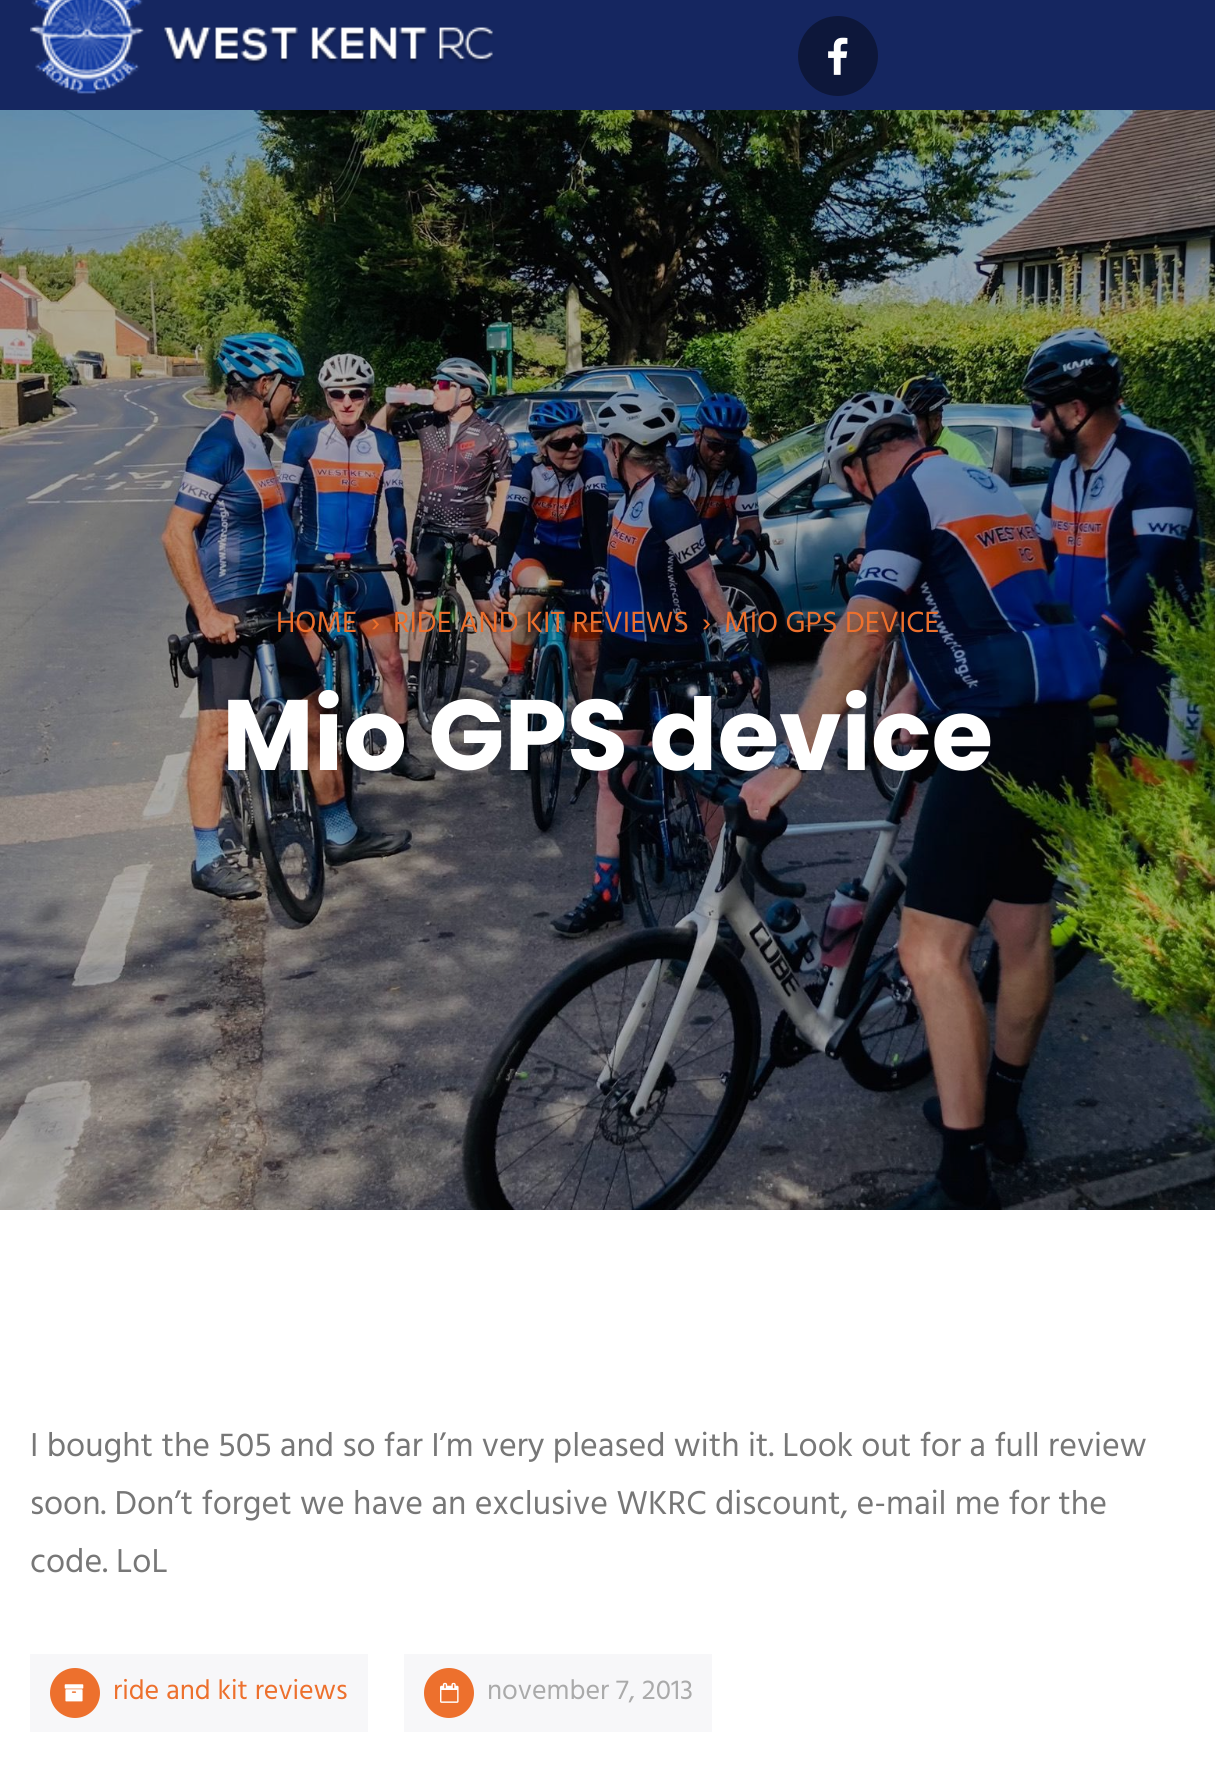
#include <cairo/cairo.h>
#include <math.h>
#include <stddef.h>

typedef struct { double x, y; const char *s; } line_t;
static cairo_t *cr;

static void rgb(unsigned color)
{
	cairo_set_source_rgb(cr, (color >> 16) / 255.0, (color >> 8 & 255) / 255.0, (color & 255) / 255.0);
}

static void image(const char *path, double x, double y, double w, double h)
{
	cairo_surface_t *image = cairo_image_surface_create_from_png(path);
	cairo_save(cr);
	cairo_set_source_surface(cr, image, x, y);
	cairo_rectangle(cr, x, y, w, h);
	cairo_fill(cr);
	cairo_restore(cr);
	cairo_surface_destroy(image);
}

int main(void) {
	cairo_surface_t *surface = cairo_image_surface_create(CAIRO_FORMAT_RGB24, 1215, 1777);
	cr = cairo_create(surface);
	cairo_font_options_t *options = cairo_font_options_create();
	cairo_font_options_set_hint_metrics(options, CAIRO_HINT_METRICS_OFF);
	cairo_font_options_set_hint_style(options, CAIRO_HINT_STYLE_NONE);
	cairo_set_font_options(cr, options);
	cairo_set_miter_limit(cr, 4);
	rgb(0xffffff);
	cairo_paint(cr);
	rgb(0x152660);
	cairo_rectangle(cr, 0, 0, 1215, 110);
	cairo_fill(cr);
	image("img/1.png", 30, 0, 463, 94);
	rgb(0x0d173a);
	cairo_arc(cr, 838, 56, 40, 0, 2 * M_PI);
	cairo_fill(cr);
	image("img/2.png", 828, 37, 20, 38);
	image("img/3.png", 0, 110, 1215, 1100);
	rgb(0xf7f7f9);
	cairo_rectangle(cr, 30, 1654, 338, 78);
	cairo_fill(cr);
	rgb(0xed702d);
	cairo_arc(cr, 75, 1693, 25, 0, 2 * M_PI);
	cairo_fill(cr);
	image("img/4.png", 64, 1684, 20, 18);
	rgb(0xf7f7f9);
	cairo_rectangle(cr, 404, 1654, 308, 78);
	cairo_fill(cr);
	rgb(0xed702d);
	cairo_arc(cr, 449, 1693, 25, 0, 2 * M_PI);
	cairo_fill(cr);
	image("img/5.png", 440, 1682, 19, 21);
	cairo_select_font_face(cr, "Hind", CAIRO_FONT_SLANT_NORMAL, CAIRO_FONT_WEIGHT_NORMAL);
	cairo_set_font_size(cr, 30);
	{
		static const line_t items[] = {
			{276, 632, "HOME"},
			{371, 632, "›"},
			{393, 632, "RIDE AND KIT REVIEWS"},
			{702, 632, "›"},
			{724, 632, "MIO GPS DEVICE"},
		};
		for (size_t i = 0; i < sizeof items / sizeof *items; i++) {
			cairo_move_to(cr, items[i].x, items[i].y);
			cairo_show_text(cr, items[i].s);
		}
	}
	cairo_select_font_face(cr, "Poppins", CAIRO_FONT_SLANT_NORMAL, CAIRO_FONT_WEIGHT_BOLD);
	cairo_set_font_size(cr, 100);
	rgb(0xffffff);
	cairo_move_to(cr, 222, 770);
	cairo_show_text(cr, "Mio GPS device");
	cairo_select_font_face(cr, "Hind", CAIRO_FONT_SLANT_NORMAL, CAIRO_FONT_WEIGHT_NORMAL);
	cairo_set_font_size(cr, 34);
	rgb(0x777777);
	{
		static const line_t items[] = {
			{30, 1456, "I bought the 505 and so far I’m very pleased with it. Look out for a full review"},
			{30, 1514, "soon. Don’t forget we have an exclusive WKRC discount, e-mail me for the"},
			{30, 1572, "code. LoL"},
		};
		for (size_t i = 0; i < sizeof items / sizeof *items; i++) {
			cairo_move_to(cr, items[i].x, items[i].y);
			cairo_show_text(cr, items[i].s);
		}
	}
	cairo_set_font_size(cr, 28);
	rgb(0xed702d);
	cairo_move_to(cr, 113, 1699);
	cairo_show_text(cr, "ride and kit reviews");
	rgb(0xaaaaaa);
	cairo_move_to(cr, 487, 1699);
	cairo_show_text(cr, "november 7, 2013");
	cairo_surface_write_to_png(surface, "page.png");
	cairo_font_options_destroy(options);
	cairo_destroy(cr);
	cairo_surface_destroy(surface);
	return 0;
}
